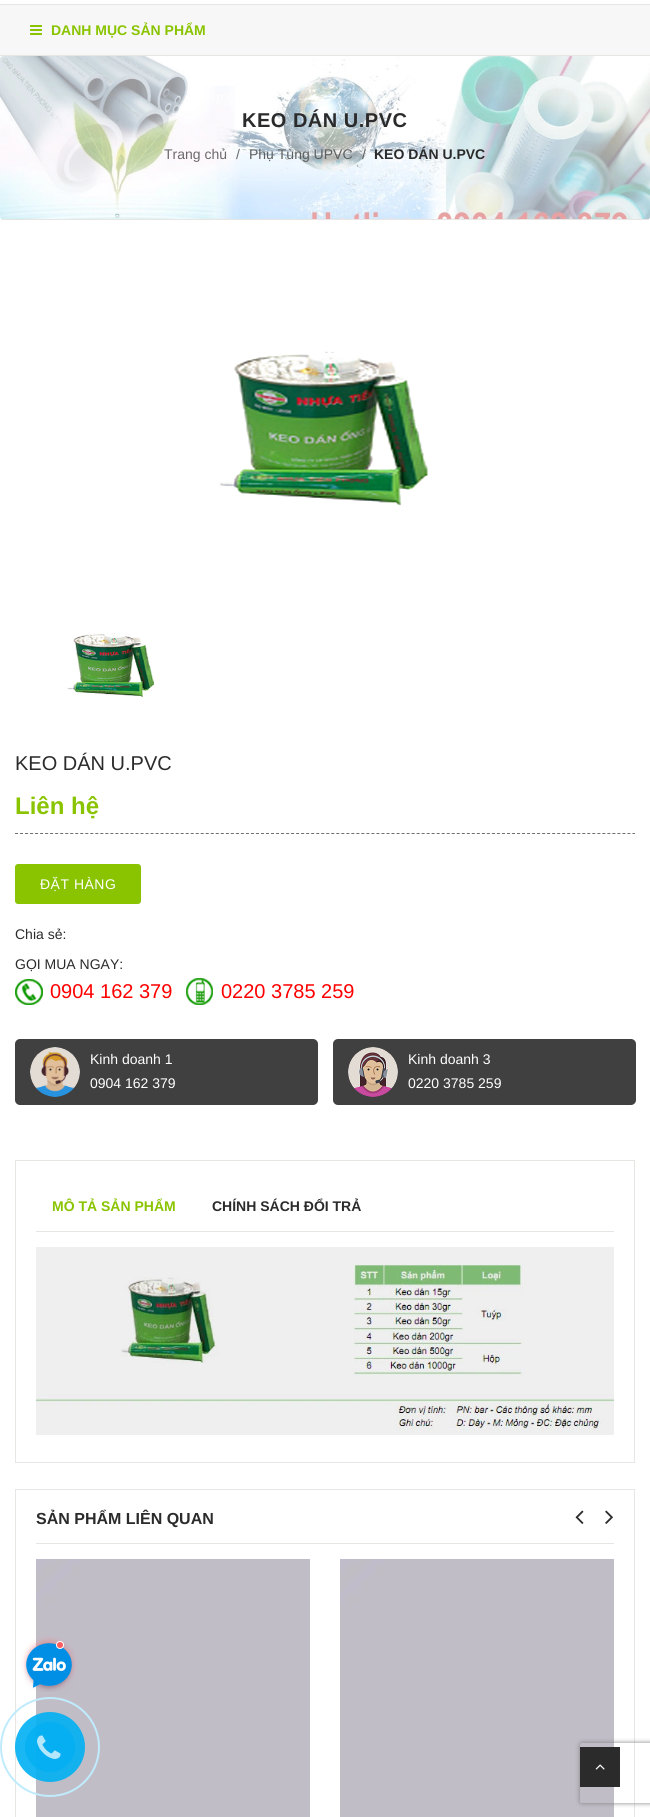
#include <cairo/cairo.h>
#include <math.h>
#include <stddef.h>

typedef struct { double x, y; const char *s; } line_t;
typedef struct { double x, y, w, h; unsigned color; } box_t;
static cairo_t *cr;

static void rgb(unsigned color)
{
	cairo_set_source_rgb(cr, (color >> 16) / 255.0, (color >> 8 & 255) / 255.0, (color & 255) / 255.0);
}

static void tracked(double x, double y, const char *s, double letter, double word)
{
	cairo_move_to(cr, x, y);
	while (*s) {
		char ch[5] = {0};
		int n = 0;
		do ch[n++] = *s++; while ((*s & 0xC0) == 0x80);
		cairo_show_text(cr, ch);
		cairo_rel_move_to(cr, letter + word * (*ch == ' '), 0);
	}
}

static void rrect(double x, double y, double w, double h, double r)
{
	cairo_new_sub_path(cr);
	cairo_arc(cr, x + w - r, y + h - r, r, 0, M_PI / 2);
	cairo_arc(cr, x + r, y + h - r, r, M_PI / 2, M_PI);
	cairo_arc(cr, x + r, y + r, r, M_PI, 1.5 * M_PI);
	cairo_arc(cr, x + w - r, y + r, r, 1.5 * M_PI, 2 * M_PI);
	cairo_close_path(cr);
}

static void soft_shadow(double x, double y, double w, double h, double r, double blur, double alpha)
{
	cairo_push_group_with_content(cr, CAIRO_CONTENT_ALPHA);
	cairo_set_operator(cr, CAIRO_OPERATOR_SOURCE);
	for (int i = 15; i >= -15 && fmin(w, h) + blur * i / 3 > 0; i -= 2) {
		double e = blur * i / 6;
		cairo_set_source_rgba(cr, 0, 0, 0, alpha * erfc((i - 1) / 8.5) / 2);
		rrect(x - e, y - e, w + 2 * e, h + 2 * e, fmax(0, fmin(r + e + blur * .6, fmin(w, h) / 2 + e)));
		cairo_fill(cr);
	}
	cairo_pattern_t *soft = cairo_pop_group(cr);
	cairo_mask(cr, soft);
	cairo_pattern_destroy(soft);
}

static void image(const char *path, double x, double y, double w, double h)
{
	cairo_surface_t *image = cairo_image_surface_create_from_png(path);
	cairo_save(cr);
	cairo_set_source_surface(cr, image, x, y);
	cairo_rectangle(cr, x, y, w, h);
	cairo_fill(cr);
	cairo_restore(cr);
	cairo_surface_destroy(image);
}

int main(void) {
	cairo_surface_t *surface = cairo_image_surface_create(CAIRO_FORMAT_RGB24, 650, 1817);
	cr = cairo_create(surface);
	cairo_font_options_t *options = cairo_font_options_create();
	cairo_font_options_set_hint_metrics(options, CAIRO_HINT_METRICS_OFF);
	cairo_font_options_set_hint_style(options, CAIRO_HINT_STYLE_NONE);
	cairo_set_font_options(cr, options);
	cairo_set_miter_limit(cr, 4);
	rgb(0xffffff);
	cairo_paint(cr);
	{
		static const box_t items[] = {
			{0, 5, 650, 50, 0xf7f7f7},
			{0, 4, 650, 1, 0xe8e6e2},
			{0, 55, 650, 1, 0xe8e6e2},
		};
		for (size_t i = 0; i < sizeof items / sizeof *items; i++) {
			rgb(items[i].color);
			cairo_rectangle(cr, items[i].x, items[i].y, items[i].w, items[i].h);
			cairo_fill(cr);
		}
	}
	image("img/1.png", 30, 25, 12, 10);
	image("img/2.png", 0, 56, 650, 164);
	cairo_rectangle(cr, 2, 219, 646, 1);
	cairo_fill(cr);
	image("img/3.png", 219, 351, 209, 155);
	image("img/4.png", 67, 633, 87, 64);
	cairo_new_path(cr);
	cairo_move_to(cr, 15, 833.5);
	cairo_line_to(cr, 635, 833.5);
	rgb(0x717070);
	cairo_set_line_width(cr, 1);
	cairo_set_dash(cr, (double[]){3, 2.02}, 2, 0);
	cairo_stroke(cr);
	rgb(0x8ac400);
	rrect(15, 864, 126, 40, 3);
	cairo_fill(cr);
	image("img/5.png", 15, 979, 28, 26);
	image("img/6.png", 186, 978, 27, 27);
	rgb(0x404040);
	rrect(15, 1039, 303, 66, 5);
	cairo_fill(cr);
	image("img/7.png", 30, 1047, 50, 50);
	rrect(333, 1039, 303, 66, 5);
	cairo_fill(cr);
	image("img/8.png", 348, 1047, 50, 50);
	cairo_rectangle(cr, 15.5, 1160.5, 619, 302);
	rgb(0xe8e6e2);
	cairo_set_dash(cr, NULL, 0, 0);
	cairo_stroke(cr);
	cairo_rectangle(cr, 36, 1231, 578, 1);
	cairo_fill(cr);
	image("img/9.png", 36, 1247, 578, 188);
	cairo_rectangle(cr, 15.5, 1489.5, 619, 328);
	cairo_stroke(cr);
	cairo_rectangle(cr, 36, 1543, 578, 1);
	cairo_fill(cr);
	image("img/10.png", 575, 1510, 9, 14);
	image("img/11.png", 605, 1510, 8, 14);
	image("img/12.png", 36, 1559, 274, 258);
	image("img/12.png", 340, 1559, 274, 258);
	rgb(0xff5d5d);
	soft_shadow(29, 1644, 40, 40, 20, 4, 1);
	image("img/13.png", 24, 1643, 50, 49);
	rgb(0xff5d5d);
	cairo_arc(cr, 60, 1645, 3.5, 0, 2 * M_PI);
	cairo_fill_preserve(cr);
	rgb(0xffffff);
	cairo_stroke(cr);
	cairo_arc(cr, 50, 1747, 49, 0, 2 * M_PI);
	rgb(0xbfebfc);
	cairo_set_line_width(cr, 2);
	cairo_stroke(cr);
	cairo_set_source_rgba(cr, 0, 0.686, 0.949, 0.9);
	cairo_arc(cr, 50, 1747, 35, 0, 2 * M_PI);
	cairo_fill(cr);
	cairo_set_source_rgba(cr, 0, 0.686, 0.949, 0.7);
	cairo_arc(cr, 50, 1747, 25, 0, 2 * M_PI);
	cairo_fill(cr);
	image("img/14.png", 37, 1735, 24, 24);
	cairo_save(cr);
	cairo_set_fill_rule(cr, CAIRO_FILL_RULE_EVEN_ODD);
	cairo_new_path(cr);
	cairo_move_to(cr, 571, 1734);
	cairo_line_to(cr, 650, 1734);
	cairo_line_to(cr, 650, 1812);
	cairo_line_to(cr, 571, 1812);
	cairo_close_path(cr);
	cairo_move_to(cr, 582, 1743);
	cairo_line_to(cr, 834, 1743);
	cairo_curve_to(cr, 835, 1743, 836, 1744, 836, 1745);
	cairo_line_to(cr, 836, 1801);
	cairo_curve_to(cr, 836, 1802, 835, 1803, 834, 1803);
	cairo_line_to(cr, 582, 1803);
	cairo_curve_to(cr, 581, 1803, 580, 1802, 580, 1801);
	cairo_line_to(cr, 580, 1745);
	cairo_curve_to(cr, 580, 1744, 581, 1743, 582, 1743);
	cairo_close_path(cr);
	cairo_clip(cr);
	rgb(0x808080);
	soft_shadow(580, 1743, 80, 60, 2, 2.5, 1);
	cairo_restore(cr);
	rgb(0x2b2b2b);
	cairo_rectangle(cr, 580, 1747, 40, 40);
	cairo_fill(cr);
	image("img/15.png", 595, 1764, 10, 6);
	cairo_select_font_face(cr, "Liberation Sans", CAIRO_FONT_SLANT_NORMAL, CAIRO_FONT_WEIGHT_BOLD);
	cairo_set_font_size(cr, 14);
	rgb(0x8ac400);
	cairo_move_to(cr, 51, 35);
	cairo_show_text(cr, "DANH MỤC SẢN PHẨM");
	cairo_set_font_size(cr, 20);
	rgb(0x2b2b2b);
	tracked(242, 127, "KEO DÁN U.PVC", 0.5, 0);
	cairo_select_font_face(cr, "Liberation Sans", CAIRO_FONT_SLANT_NORMAL, CAIRO_FONT_WEIGHT_NORMAL);
	cairo_set_font_size(cr, 14);
	rgb(0x6a696a);
	cairo_move_to(cr, 164, 159);
	cairo_show_text(cr, "Trang chủ");
	cairo_move_to(cr, 236, 159);
	cairo_show_text(cr, "/");
	rgb(0x5c5f60);
	cairo_move_to(cr, 249, 159);
	cairo_show_text(cr, "Phụ Tùng UPVC");
	cairo_move_to(cr, 362, 159);
	cairo_show_text(cr, "/");
	cairo_select_font_face(cr, "Liberation Sans", CAIRO_FONT_SLANT_NORMAL, CAIRO_FONT_WEIGHT_BOLD);
	rgb(0x2b2b2b);
	cairo_move_to(cr, 374, 159);
	cairo_show_text(cr, "KEO DÁN U.PVC");
	cairo_select_font_face(cr, "Liberation Sans", CAIRO_FONT_SLANT_NORMAL, CAIRO_FONT_WEIGHT_NORMAL);
	cairo_set_font_size(cr, 20);
	cairo_move_to(cr, 15, 770);
	cairo_show_text(cr, "KEO DÁN U.PVC");
	cairo_select_font_face(cr, "Liberation Sans", CAIRO_FONT_SLANT_NORMAL, CAIRO_FONT_WEIGHT_BOLD);
	cairo_set_font_size(cr, 24);
	rgb(0x8ac400);
	cairo_move_to(cr, 15, 814);
	cairo_show_text(cr, "Liên hệ");
	cairo_select_font_face(cr, "Liberation Sans", CAIRO_FONT_SLANT_NORMAL, CAIRO_FONT_WEIGHT_NORMAL);
	cairo_set_font_size(cr, 14);
	rgb(0xffffff);
	tracked(40, 889, "ĐẶT HÀNG", 0.5, 0);
	rgb(0x2b2b2b);
	cairo_move_to(cr, 15, 939);
	cairo_show_text(cr, "Chia sẻ:");
	cairo_move_to(cr, 15, 969);
	cairo_show_text(cr, "GỌI MUA NGAY:");
	cairo_set_font_size(cr, 20);
	rgb(0xff0000);
	cairo_move_to(cr, 50, 998);
	cairo_show_text(cr, "0904 162 379");
	cairo_move_to(cr, 221, 998);
	cairo_show_text(cr, "0220 3785 259");
	cairo_set_font_size(cr, 14);
	rgb(0xffffff);
	{
		static const line_t items[] = {
			{90, 1064, "Kinh doanh 1"},
			{90, 1088, "0904 162 379"},
			{408, 1064, "Kinh doanh 3"},
			{408, 1088, "0220 3785 259"},
		};
		for (size_t i = 0; i < sizeof items / sizeof *items; i++) {
			cairo_move_to(cr, items[i].x, items[i].y);
			cairo_show_text(cr, items[i].s);
		}
	}
	cairo_select_font_face(cr, "Liberation Sans", CAIRO_FONT_SLANT_NORMAL, CAIRO_FONT_WEIGHT_BOLD);
	rgb(0x8ac400);
	cairo_move_to(cr, 52, 1211);
	cairo_show_text(cr, "MÔ TẢ SẢN PHẨM");
	rgb(0x2b2b2b);
	cairo_move_to(cr, 212, 1211);
	cairo_show_text(cr, "CHÍNH SÁCH ĐỔI TRẢ");
	cairo_set_font_size(cr, 16);
	cairo_move_to(cr, 36, 1524);
	cairo_show_text(cr, "SẢN PHẨM LIÊN QUAN");
	cairo_surface_write_to_png(surface, "page.png");
	cairo_font_options_destroy(options);
	cairo_destroy(cr);
	cairo_surface_destroy(surface);
	return 0;
}
